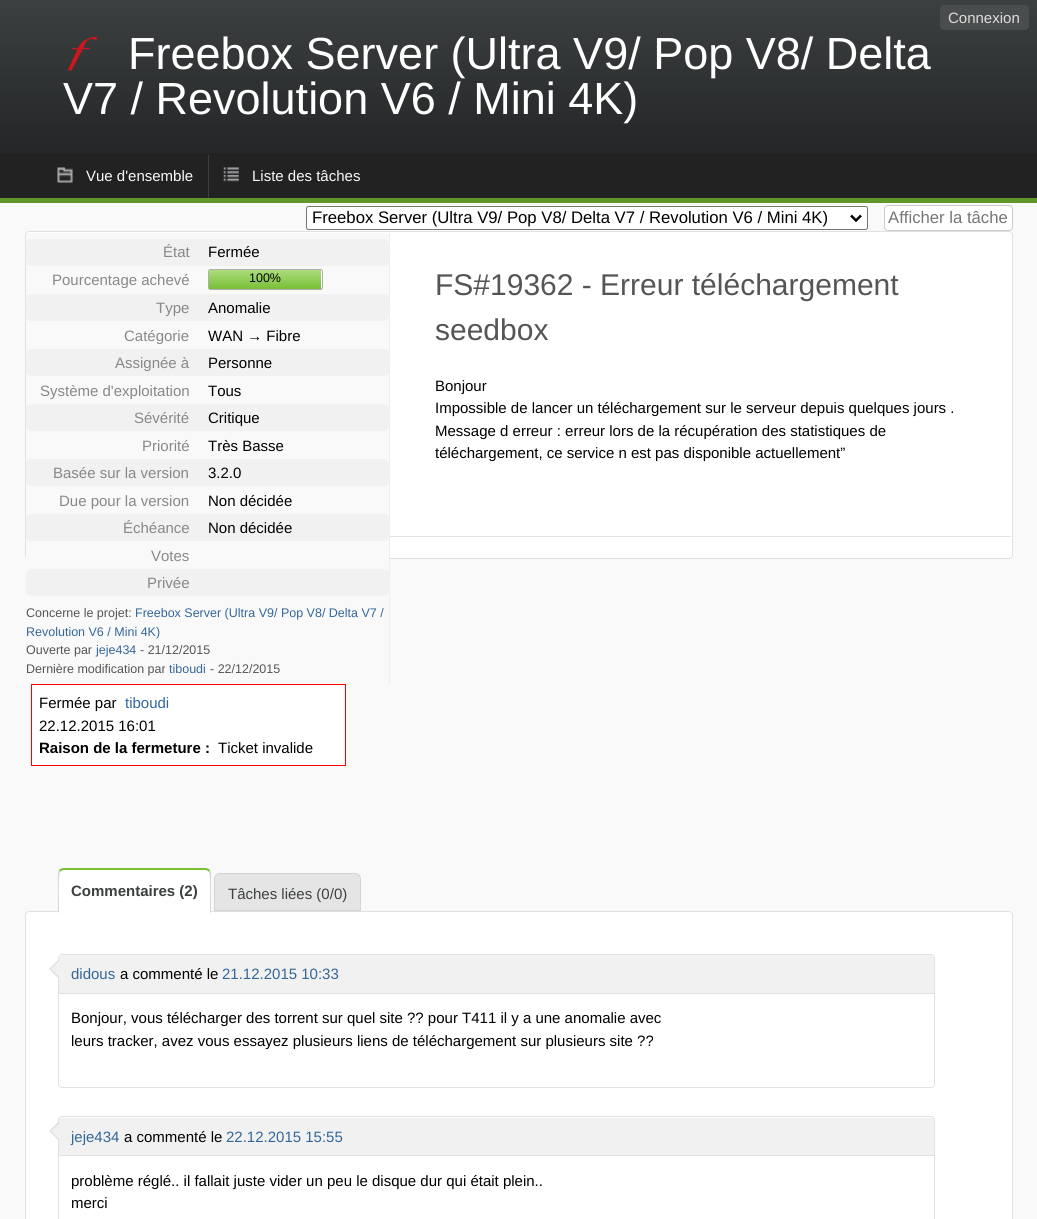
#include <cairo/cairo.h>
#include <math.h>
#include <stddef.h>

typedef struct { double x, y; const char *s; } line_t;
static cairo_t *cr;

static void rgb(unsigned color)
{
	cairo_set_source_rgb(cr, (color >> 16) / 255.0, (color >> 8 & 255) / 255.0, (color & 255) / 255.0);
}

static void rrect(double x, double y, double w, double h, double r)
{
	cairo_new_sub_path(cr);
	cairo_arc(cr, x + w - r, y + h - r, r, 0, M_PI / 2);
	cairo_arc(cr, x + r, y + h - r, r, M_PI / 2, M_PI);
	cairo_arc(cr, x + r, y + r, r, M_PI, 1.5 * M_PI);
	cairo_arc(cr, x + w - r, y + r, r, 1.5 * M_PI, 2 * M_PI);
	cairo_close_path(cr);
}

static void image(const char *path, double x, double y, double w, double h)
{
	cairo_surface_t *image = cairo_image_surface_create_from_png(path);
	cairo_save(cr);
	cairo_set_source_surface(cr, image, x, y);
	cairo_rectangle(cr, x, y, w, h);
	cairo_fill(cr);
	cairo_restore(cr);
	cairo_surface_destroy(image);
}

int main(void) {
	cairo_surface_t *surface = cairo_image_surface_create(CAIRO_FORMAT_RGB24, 1037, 1219);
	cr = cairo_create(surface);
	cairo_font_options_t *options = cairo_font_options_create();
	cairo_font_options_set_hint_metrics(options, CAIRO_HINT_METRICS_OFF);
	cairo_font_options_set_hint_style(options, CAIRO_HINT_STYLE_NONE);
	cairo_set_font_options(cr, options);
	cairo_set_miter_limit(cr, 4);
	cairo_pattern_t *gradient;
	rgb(0xf9f9f9);
	cairo_paint(cr);
	gradient = cairo_pattern_create_linear(519, 0, 519, 153);
	cairo_pattern_add_color_stop_rgba(gradient, 0, 0.235, 0.251, 0.255, 1);
	cairo_pattern_add_color_stop_rgba(gradient, 1, 0.141, 0.149, 0.153, 1);
	cairo_set_source(cr, gradient);
	cairo_pattern_destroy(gradient);
	cairo_rectangle(cr, 0, 0, 1037, 153);
	cairo_fill(cr);
	rgb(0x494d4e);
	rrect(940, 5, 89, 25, 4);
	cairo_fill(cr);
	image("img/1.png", 67, 36, 31, 35);
	rgb(0x222222);
	cairo_rectangle(cr, 0, 153, 1037, 45);
	cairo_fill(cr);
	rgb(0x5f9729);
	cairo_rectangle(cr, 0, 198, 1037, 5);
	cairo_fill(cr);
	image("img/2.png", 57, 167, 16, 16);
	image("img/3.png", 223, 167, 16, 15);
	rgb(0x3c4041);
	cairo_rectangle(cr, 208, 155, 1, 43);
	cairo_fill(cr);
	rgb(0xffffff);
	rrect(306.5, 206.5, 561, 23, 2);
	cairo_fill_preserve(cr);
	rgb(0x767676);
	cairo_set_line_width(cr, 1);
	cairo_stroke(cr);
	cairo_new_path(cr);
	cairo_move_to(cr, 851, 215.5);
	cairo_line_to(cr, 856, 220.5);
	cairo_line_to(cr, 861, 215.5);
	rgb(0x000000);
	cairo_set_line_width(cr, 2.5);
	cairo_stroke(cr);
	rgb(0xffffff);
	rrect(884.5, 205.5, 128, 25, 3.5);
	cairo_fill_preserve(cr);
	rgb(0xcccccc);
	cairo_set_line_width(cr, 1);
	cairo_stroke(cr);
	rgb(0xffffff);
	rrect(25.5, 231.5, 987, 327, 3.5);
	cairo_fill_preserve(cr);
	rgb(0xe1e1e1);
	cairo_stroke(cr);
	rgb(0xf9f9f9);
	cairo_rectangle(cr, 26, 233, 363, 326);
	cairo_fill(cr);
	rgb(0xeeeeee);
	cairo_rectangle(cr, 389, 233, 1, 451);
	cairo_fill(cr);
	rgb(0xf1f1f1);
	rrect(26, 239, 363, 27, 5);
	cairo_fill(cr);
	rrect(208.5, 269.5, 114, 20, 2);
	rgb(0xaeaeae);
	cairo_stroke(cr);
	gradient = cairo_pattern_create_linear(265, 270, 265, 289);
	cairo_pattern_add_color_stop_rgba(gradient, 0, 0.675, 0.863, 0.49, 1);
	cairo_pattern_add_color_stop_rgba(gradient, 1, 0.471, 0.749, 0.204, 1);
	cairo_set_source(cr, gradient);
	cairo_pattern_destroy(gradient);
	cairo_rectangle(cr, 209, 270, 112, 19);
	cairo_fill(cr);
	rgb(0xf1f1f1);
	rrect(26, 294, 363, 27, 5);
	cairo_fill(cr);
	rrect(26, 349, 363, 27, 5);
	cairo_fill(cr);
	rrect(26, 404, 363, 27, 5);
	cairo_fill(cr);
	rrect(26, 459, 363, 27, 5);
	cairo_fill(cr);
	rrect(26, 514, 363, 27, 5);
	cairo_fill(cr);
	rrect(26, 569, 363, 27, 5);
	cairo_fill(cr);
	rgb(0xe1e1e1);
	cairo_rectangle(cr, 390, 536, 621, 1);
	cairo_fill(cr);
	rgb(0xffffff);
	cairo_rectangle(cr, 31.5, 684.5, 314, 81);
	cairo_fill_preserve(cr);
	rgb(0xff0000);
	cairo_stroke(cr);
	rgb(0xffffff);
	rrect(25.5, 911.5, 987, 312, 3.5);
	cairo_fill_preserve(cr);
	rgb(0xe1e1e1);
	cairo_stroke(cr);
	rgb(0xffffff);
	cairo_new_path(cr);
	cairo_move_to(cr, 64, 870);
	cairo_line_to(cr, 205, 870);
	cairo_curve_to(cr, 208, 870, 210, 872, 210, 874);
	cairo_line_to(cr, 210, 912);
	cairo_line_to(cr, 59, 912);
	cairo_line_to(cr, 59, 874);
	cairo_curve_to(cr, 59, 872, 61, 870, 64, 870);
	cairo_close_path(cr);
	cairo_fill(cr);
	rgb(0x78bf34);
	cairo_new_path(cr);
	cairo_move_to(cr, 64, 868);
	cairo_curve_to(cr, 62, 868, 60, 869, 59, 870);
	cairo_line_to(cr, 60, 872);
	cairo_curve_to(cr, 61, 871, 62, 870, 64, 870);
	cairo_line_to(cr, 205, 870);
	cairo_curve_to(cr, 207, 870, 208, 871, 209, 872);
	cairo_line_to(cr, 210, 870);
	cairo_curve_to(cr, 209, 869, 207, 868, 205, 868);
	cairo_close_path(cr);
	cairo_fill(cr);
	rgb(0xd4d4d4);
	cairo_new_path(cr);
	cairo_move_to(cr, 211, 914);
	cairo_line_to(cr, 211, 874);
	cairo_curve_to(cr, 211, 872, 211, 871, 210, 870);
	cairo_line_to(cr, 209, 872);
	cairo_curve_to(cr, 211, 874, 210, 907, 210, 912);
	cairo_close_path(cr);
	cairo_fill(cr);
	rgb(0xffffff);
	cairo_new_path(cr);
	cairo_move_to(cr, 58, 914);
	cairo_line_to(cr, 59, 912);
	cairo_line_to(cr, 210, 912);
	cairo_line_to(cr, 211, 914);
	cairo_close_path(cr);
	cairo_fill(cr);
	rgb(0xd4d4d4);
	cairo_new_path(cr);
	cairo_move_to(cr, 59, 870);
	cairo_curve_to(cr, 58, 871, 58, 872, 58, 874);
	cairo_line_to(cr, 58, 913);
	cairo_line_to(cr, 59, 912);
	cairo_curve_to(cr, 59, 907, 58, 874, 60, 872);
	cairo_close_path(cr);
	cairo_fill(cr);
	rgb(0xe5e5e5);
	cairo_new_path(cr);
	cairo_move_to(cr, 220, 873.5);
	cairo_line_to(cr, 355, 873.5);
	cairo_curve_to(cr, 358, 873.5, 360.5, 876, 360.5, 879);
	cairo_line_to(cr, 360.5, 910.5);
	cairo_line_to(cr, 214.5, 910.5);
	cairo_line_to(cr, 214.5, 879);
	cairo_curve_to(cr, 214.5, 876, 217, 873.5, 220, 873.5);
	cairo_close_path(cr);
	cairo_fill_preserve(cr);
	rgb(0xd4d4d4);
	cairo_stroke(cr);
	rrect(58.5, 954.5, 876, 133, 3.5);
	rgb(0xe1e1e1);
	cairo_stroke(cr);
	cairo_new_path(cr);
	cairo_move_to(cr, 59, 959);
	cairo_line_to(cr, 59, 979);
	cairo_line_to(cr, 49, 969);
	cairo_close_path(cr);
	cairo_fill(cr);
	rgb(0xf1f1f1);
	cairo_new_path(cr);
	cairo_move_to(cr, 59, 961);
	cairo_line_to(cr, 59, 976);
	cairo_line_to(cr, 51, 969);
	cairo_close_path(cr);
	cairo_fill(cr);
	cairo_rectangle(cr, 59, 955, 875, 38);
	cairo_fill(cr);
	rgb(0xe1e1e1);
	cairo_rectangle(cr, 59, 993, 875, 1);
	cairo_fill(cr);
	rrect(58.5, 1116.5, 876, 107, 3.5);
	cairo_stroke(cr);
	cairo_new_path(cr);
	cairo_move_to(cr, 59, 1121);
	cairo_line_to(cr, 59, 1141);
	cairo_line_to(cr, 49, 1131);
	cairo_close_path(cr);
	cairo_fill(cr);
	rgb(0xf1f1f1);
	cairo_new_path(cr);
	cairo_move_to(cr, 59, 1124);
	cairo_line_to(cr, 59, 1139);
	cairo_line_to(cr, 51, 1131);
	cairo_close_path(cr);
	cairo_fill(cr);
	cairo_rectangle(cr, 59, 1118, 875, 37);
	cairo_fill(cr);
	rgb(0xe1e1e1);
	cairo_rectangle(cr, 59, 1155, 875, 1);
	cairo_fill(cr);
	cairo_select_font_face(cr, "Liberation Sans", CAIRO_FONT_SLANT_NORMAL, CAIRO_FONT_WEIGHT_NORMAL);
	cairo_set_font_size(cr, 15);
	rgb(0xdddddd);
	cairo_move_to(cr, 948, 23);
	cairo_show_text(cr, "Connexion");
	cairo_set_font_size(cr, 45);
	rgb(0xffffff);
	cairo_move_to(cr, 128, 69);
	cairo_show_text(cr, "Freebox Server (Ultra V9/ Pop V8/ Delta");
	cairo_move_to(cr, 63, 114);
	cairo_show_text(cr, "V7 / Revolution V6 / Mini 4K)");
	cairo_set_font_size(cr, 15);
	rgb(0xf9f9f9);
	cairo_move_to(cr, 86, 181);
	cairo_show_text(cr, "Vue d'ensemble");
	cairo_move_to(cr, 252, 181);
	cairo_show_text(cr, "Liste des tâches");
	cairo_set_font_size(cr, 16.7);
	rgb(0x000000);
	cairo_move_to(cr, 312, 223);
	cairo_show_text(cr, "Freebox Server (Ultra V9/ Pop V8/ Delta V7 / Revolution V6 / Mini 4K)");
	rgb(0x757575);
	cairo_move_to(cr, 888, 223);
	cairo_show_text(cr, "Afficher la tâche");
	cairo_set_font_size(cr, 15);
	rgb(0x888888);
	cairo_move_to(cr, 163, 257);
	cairo_show_text(cr, "État");
	rgb(0x000000);
	cairo_move_to(cr, 208, 257);
	cairo_show_text(cr, "Fermée");
	rgb(0x888888);
	cairo_move_to(cr, 52, 285);
	cairo_show_text(cr, "Pourcentage achevé");
	cairo_set_font_size(cr, 12.5);
	rgb(0x000000);
	cairo_move_to(cr, 249, 282);
	cairo_show_text(cr, "100%");
	cairo_set_font_size(cr, 15);
	rgb(0x888888);
	cairo_move_to(cr, 156, 313);
	cairo_show_text(cr, "Type");
	rgb(0x000000);
	cairo_move_to(cr, 208, 313);
	cairo_show_text(cr, "Anomalie");
	rgb(0x888888);
	cairo_move_to(cr, 124, 341);
	cairo_show_text(cr, "Catégorie");
	rgb(0x000000);
	cairo_move_to(cr, 208, 341);
	cairo_show_text(cr, "WAN → Fibre");
	rgb(0x888888);
	cairo_move_to(cr, 115, 368);
	cairo_show_text(cr, "Assignée à");
	rgb(0x000000);
	cairo_move_to(cr, 208, 368);
	cairo_show_text(cr, "Personne");
	rgb(0x888888);
	cairo_move_to(cr, 40, 396);
	cairo_show_text(cr, "Système d'exploitation");
	rgb(0x000000);
	cairo_move_to(cr, 208, 396);
	cairo_show_text(cr, "Tous");
	rgb(0x888888);
	cairo_move_to(cr, 134, 423);
	cairo_show_text(cr, "Sévérité");
	rgb(0x000000);
	cairo_move_to(cr, 208, 423);
	cairo_show_text(cr, "Critique");
	rgb(0x888888);
	cairo_move_to(cr, 142, 451);
	cairo_show_text(cr, "Priorité");
	rgb(0x000000);
	cairo_move_to(cr, 208, 451);
	cairo_show_text(cr, "Très Basse");
	rgb(0x888888);
	cairo_move_to(cr, 53, 478);
	cairo_show_text(cr, "Basée sur la version");
	rgb(0x000000);
	cairo_move_to(cr, 208, 478);
	cairo_show_text(cr, "3.2.0");
	rgb(0x888888);
	cairo_move_to(cr, 59, 506);
	cairo_show_text(cr, "Due pour la version");
	rgb(0x000000);
	cairo_move_to(cr, 208, 506);
	cairo_show_text(cr, "Non décidée");
	rgb(0x888888);
	cairo_move_to(cr, 123, 533);
	cairo_show_text(cr, "Échéance");
	rgb(0x000000);
	cairo_move_to(cr, 208, 533);
	cairo_show_text(cr, "Non décidée");
	rgb(0x888888);
	cairo_move_to(cr, 151, 561);
	cairo_show_text(cr, "Votes");
	cairo_move_to(cr, 147, 588);
	cairo_show_text(cr, "Privée");
	cairo_set_font_size(cr, 12.5);
	rgb(0x555555);
	cairo_move_to(cr, 26, 617);
	cairo_show_text(cr, "Concerne le projet:");
	rgb(0x336699);
	cairo_move_to(cr, 135, 617);
	cairo_show_text(cr, "Freebox Server (Ultra V9/ Pop V8/ Delta V7 /");
	cairo_move_to(cr, 26, 636);
	cairo_show_text(cr, "Revolution V6 / Mini 4K)");
	rgb(0x555555);
	cairo_move_to(cr, 26, 654);
	cairo_show_text(cr, "Ouverte par");
	rgb(0x336699);
	cairo_move_to(cr, 96, 654);
	cairo_show_text(cr, "jeje434");
	rgb(0x555555);
	cairo_move_to(cr, 140, 654);
	cairo_show_text(cr, "- 21/12/2015");
	cairo_move_to(cr, 26, 673);
	cairo_show_text(cr, "Dernière modification par");
	rgb(0x336699);
	cairo_move_to(cr, 169, 673);
	cairo_show_text(cr, "tiboudi");
	rgb(0x555555);
	cairo_move_to(cr, 210, 673);
	cairo_show_text(cr, "- 22/12/2015");
	cairo_set_font_size(cr, 30);
	cairo_move_to(cr, 435, 295);
	cairo_show_text(cr, "FS#19362 - Erreur téléchargement");
	cairo_move_to(cr, 435, 340);
	cairo_show_text(cr, "seedbox");
	cairo_set_font_size(cr, 15);
	rgb(0x000000);
	{
		static const line_t items[] = {
			{435, 391, "Bonjour"},
			{435, 413, "Impossible de lancer un téléchargement sur le serveur depuis quelques jours ."},
			{435, 436, "Message d erreur : erreur lors de la récupération des statistiques de"},
			{435, 458, "téléchargement, ce service n est pas disponible actuellement”"},
			{39, 708, "Fermée par"},
		};
		for (size_t i = 0; i < sizeof items / sizeof *items; i++) {
			cairo_move_to(cr, items[i].x, items[i].y);
			cairo_show_text(cr, items[i].s);
		}
	}
	rgb(0x336699);
	cairo_move_to(cr, 125, 708);
	cairo_show_text(cr, "tiboudi");
	rgb(0x000000);
	cairo_move_to(cr, 39, 731);
	cairo_show_text(cr, "22.12.2015 16:01");
	cairo_select_font_face(cr, "Liberation Sans", CAIRO_FONT_SLANT_NORMAL, CAIRO_FONT_WEIGHT_BOLD);
	cairo_move_to(cr, 39, 753);
	cairo_show_text(cr, "Raison de la fermeture :");
	cairo_select_font_face(cr, "Liberation Sans", CAIRO_FONT_SLANT_NORMAL, CAIRO_FONT_WEIGHT_NORMAL);
	cairo_move_to(cr, 218, 753);
	cairo_show_text(cr, "Ticket invalide");
	cairo_select_font_face(cr, "Liberation Sans", CAIRO_FONT_SLANT_NORMAL, CAIRO_FONT_WEIGHT_BOLD);
	rgb(0x3c4041);
	cairo_move_to(cr, 71, 896);
	cairo_show_text(cr, "Commentaires (2)");
	cairo_select_font_face(cr, "Liberation Sans", CAIRO_FONT_SLANT_NORMAL, CAIRO_FONT_WEIGHT_NORMAL);
	cairo_move_to(cr, 228, 899);
	cairo_show_text(cr, "Tâches liées (0/0)");
	rgb(0x336699);
	cairo_move_to(cr, 71, 979);
	cairo_show_text(cr, "didous");
	rgb(0x000000);
	cairo_move_to(cr, 120, 979);
	cairo_show_text(cr, "a commenté le");
	rgb(0x336699);
	cairo_move_to(cr, 222, 979);
	cairo_show_text(cr, "21.12.2015 10:33");
	rgb(0x000000);
	cairo_move_to(cr, 71, 1023);
	cairo_show_text(cr, "Bonjour, vous télécharger des torrent sur quel site ?\077 pour T411 il y a une anomalie avec");
	cairo_move_to(cr, 71, 1046);
	cairo_show_text(cr, "leurs tracker, avez vous essayez plusieurs liens de téléchargement sur plusieurs site ?\077");
	rgb(0x336699);
	cairo_move_to(cr, 71, 1142);
	cairo_show_text(cr, "jeje434");
	rgb(0x000000);
	cairo_move_to(cr, 124, 1142);
	cairo_show_text(cr, "a commenté le");
	rgb(0x336699);
	cairo_move_to(cr, 226, 1142);
	cairo_show_text(cr, "22.12.2015 15:55");
	rgb(0x000000);
	cairo_move_to(cr, 71, 1186);
	cairo_show_text(cr, "problème réglé.. il fallait juste vider un peu le disque dur qui était plein..");
	cairo_move_to(cr, 71, 1208);
	cairo_show_text(cr, "merci");
	cairo_surface_write_to_png(surface, "page.png");
	cairo_font_options_destroy(options);
	cairo_destroy(cr);
	cairo_surface_destroy(surface);
	return 0;
}
